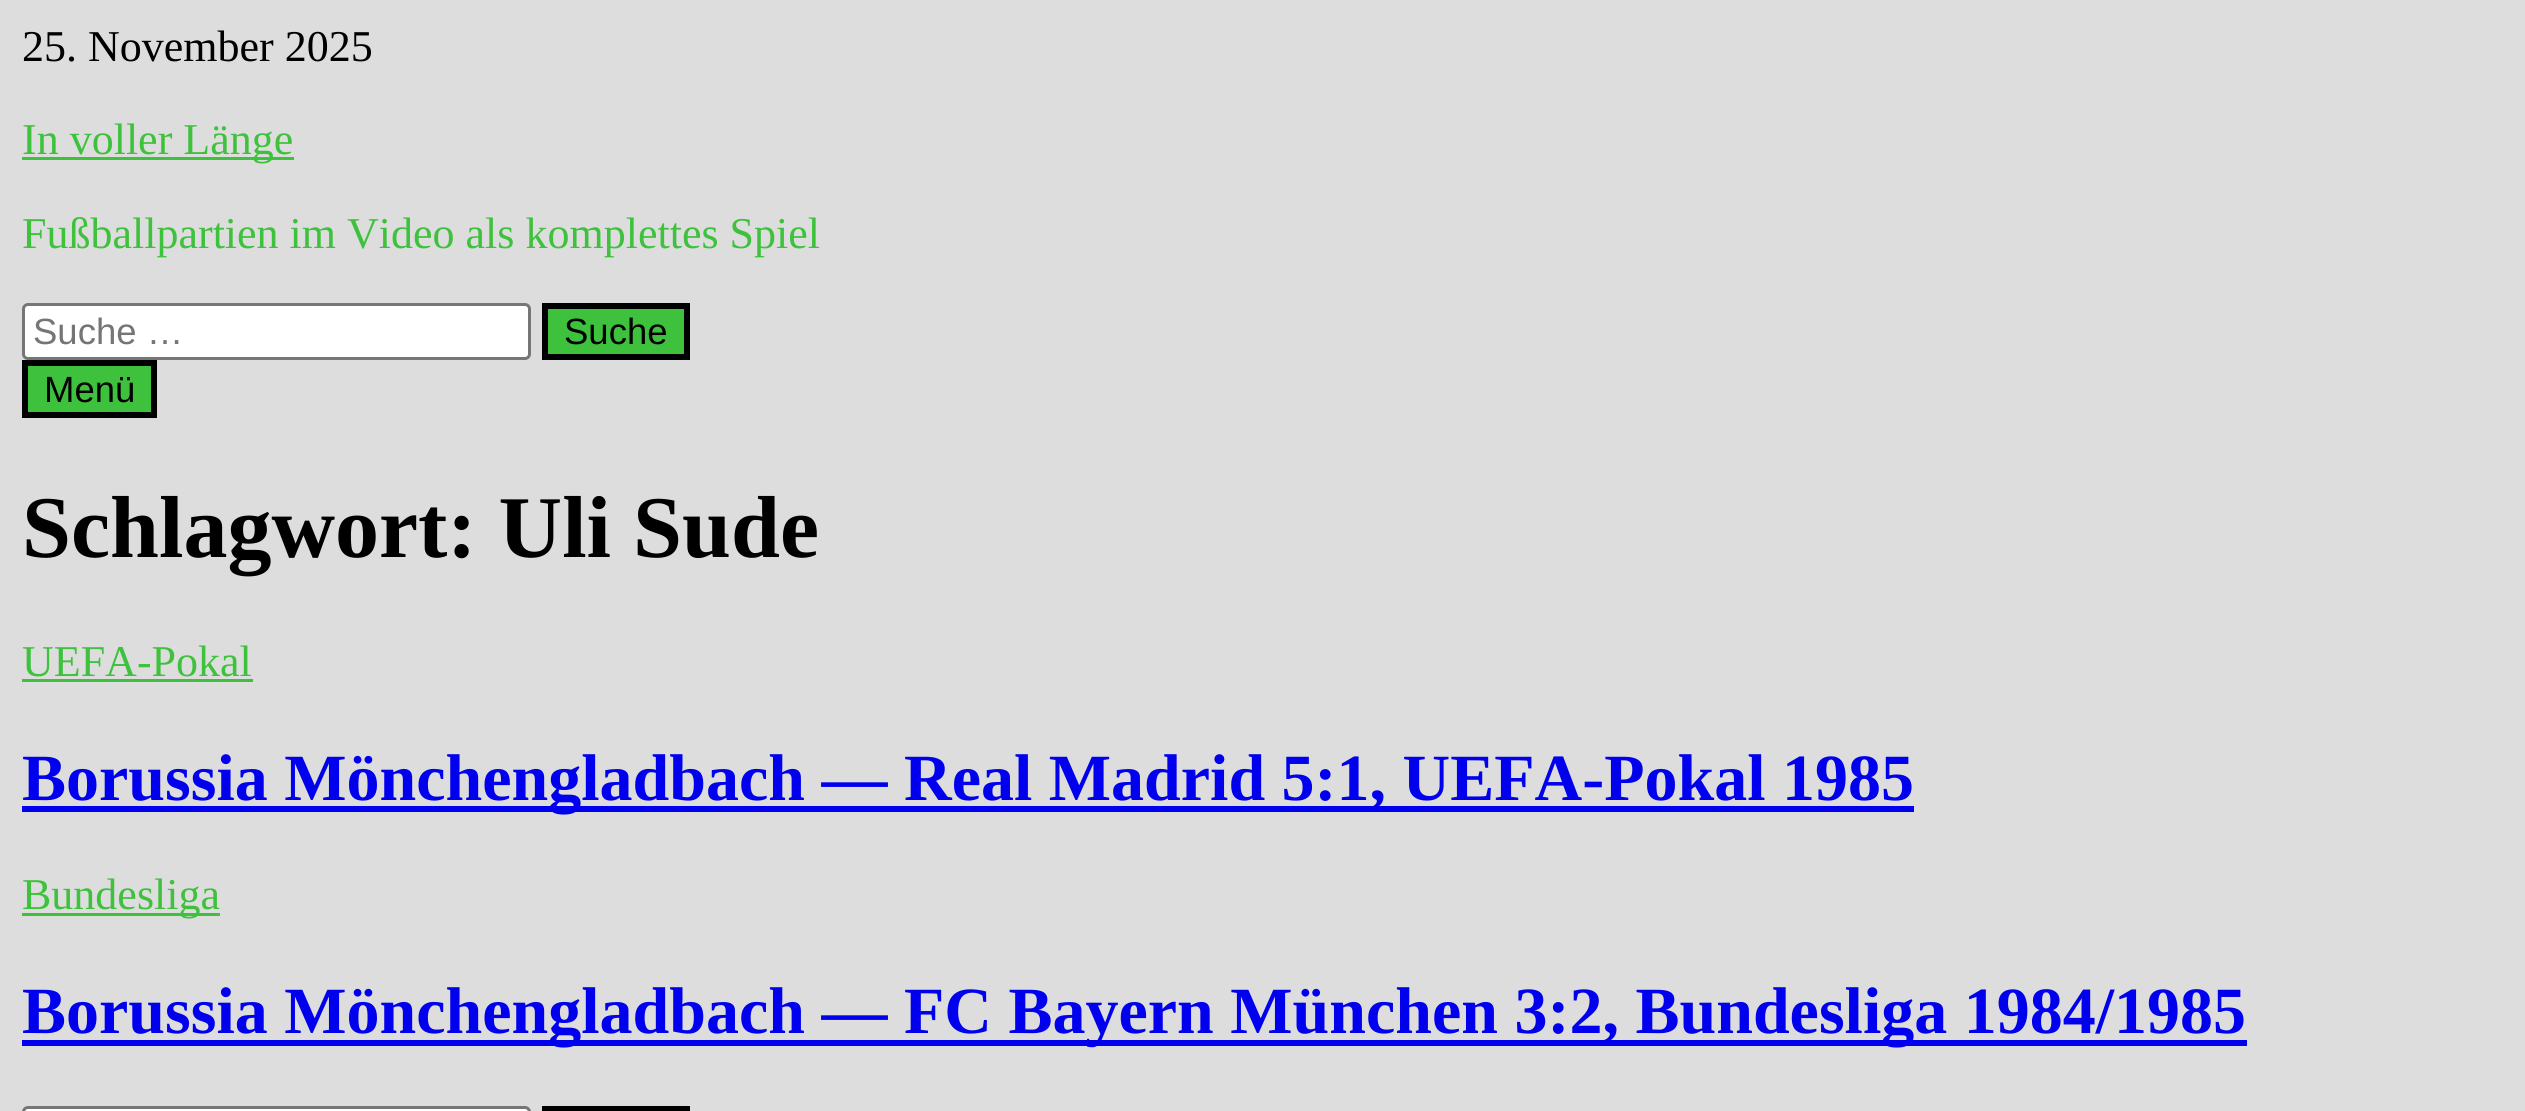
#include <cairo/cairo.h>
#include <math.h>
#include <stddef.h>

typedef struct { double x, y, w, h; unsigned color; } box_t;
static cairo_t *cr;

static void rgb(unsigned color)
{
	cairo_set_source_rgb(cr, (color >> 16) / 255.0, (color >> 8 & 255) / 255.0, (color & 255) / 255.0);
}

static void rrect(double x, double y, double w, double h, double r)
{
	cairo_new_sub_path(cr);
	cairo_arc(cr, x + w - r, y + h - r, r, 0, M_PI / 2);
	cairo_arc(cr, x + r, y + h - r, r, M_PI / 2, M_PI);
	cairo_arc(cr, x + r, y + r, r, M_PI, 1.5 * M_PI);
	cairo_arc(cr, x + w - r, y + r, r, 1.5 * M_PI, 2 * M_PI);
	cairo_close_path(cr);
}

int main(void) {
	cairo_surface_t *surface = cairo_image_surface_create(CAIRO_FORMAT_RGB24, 2525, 1111);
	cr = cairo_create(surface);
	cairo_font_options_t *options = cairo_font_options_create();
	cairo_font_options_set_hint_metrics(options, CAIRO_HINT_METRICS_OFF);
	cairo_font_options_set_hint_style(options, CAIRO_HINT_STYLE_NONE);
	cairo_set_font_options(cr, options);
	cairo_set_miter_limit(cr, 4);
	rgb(0xdddddd);
	cairo_paint(cr);
	rgb(0x3ec13c);
	cairo_rectangle(cr, 22, 157, 272, 3);
	cairo_fill(cr);
	rgb(0xffffff);
	rrect(23.5, 304.5, 506, 54, 4.5);
	cairo_fill_preserve(cr);
	rgb(0x767676);
	cairo_set_line_width(cr, 3);
	cairo_stroke(cr);
	rgb(0x3ec13c);
	cairo_rectangle(cr, 545, 306, 142, 51);
	cairo_fill_preserve(cr);
	rgb(0x000000);
	cairo_set_line_width(cr, 6);
	cairo_stroke(cr);
	rgb(0x3ec13c);
	cairo_rectangle(cr, 25, 363, 129, 52);
	cairo_fill_preserve(cr);
	rgb(0x000000);
	cairo_stroke(cr);
	{
		static const box_t items[] = {
			{22, 679, 231, 3, 0x3ec13c},
			{22, 806, 1892, 6, 0x0000ee},
			{22, 913, 198, 3, 0x3ec13c},
			{22, 1040, 2225, 6, 0x0000ee},
		};
		for (size_t i = 0; i < sizeof items / sizeof *items; i++) {
			rgb(items[i].color);
			cairo_rectangle(cr, items[i].x, items[i].y, items[i].w, items[i].h);
			cairo_fill(cr);
		}
	}
	rgb(0xffffff);
	rrect(23.5, 1107.5, 506, 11, 4.5);
	cairo_fill_preserve(cr);
	rgb(0x767676);
	cairo_set_line_width(cr, 3);
	cairo_stroke(cr);
	cairo_rectangle(cr, 545, 1109, 142, 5);
	rgb(0x000000);
	cairo_set_line_width(cr, 6);
	cairo_stroke(cr);
	cairo_select_font_face(cr, "Liberation Serif", CAIRO_FONT_SLANT_NORMAL, CAIRO_FONT_WEIGHT_NORMAL);
	cairo_set_font_size(cr, 44);
	cairo_move_to(cr, 22, 61);
	cairo_show_text(cr, "25. November 2025");
	rgb(0x3ec13c);
	cairo_move_to(cr, 22, 154);
	cairo_show_text(cr, "In voller Länge");
	cairo_move_to(cr, 22, 248);
	cairo_show_text(cr, "Fußballpartien im Video als komplettes Spiel");
	cairo_select_font_face(cr, "Liberation Sans", CAIRO_FONT_SLANT_NORMAL, CAIRO_FONT_WEIGHT_NORMAL);
	cairo_set_font_size(cr, 36.5);
	rgb(0x757575);
	cairo_move_to(cr, 33, 344);
	cairo_show_text(cr, "Suche …");
	rgb(0x000000);
	cairo_move_to(cr, 564, 344);
	cairo_show_text(cr, "Suche");
	cairo_move_to(cr, 44, 402);
	cairo_show_text(cr, "Menü");
	cairo_select_font_face(cr, "Liberation Serif", CAIRO_FONT_SLANT_NORMAL, CAIRO_FONT_WEIGHT_BOLD);
	cairo_set_font_size(cr, 88);
	cairo_move_to(cr, 22, 557);
	cairo_show_text(cr, "Schlagwort: Uli Sude");
	cairo_select_font_face(cr, "Liberation Serif", CAIRO_FONT_SLANT_NORMAL, CAIRO_FONT_WEIGHT_NORMAL);
	cairo_set_font_size(cr, 44);
	rgb(0x3ec13c);
	cairo_move_to(cr, 22, 676);
	cairo_show_text(cr, "UEFA-Pokal");
	cairo_select_font_face(cr, "Liberation Serif", CAIRO_FONT_SLANT_NORMAL, CAIRO_FONT_WEIGHT_BOLD);
	cairo_set_font_size(cr, 66);
	rgb(0x0000ee);
	cairo_move_to(cr, 22, 800);
	cairo_show_text(cr, "Borussia Mönchengladbach — Real Madrid 5:1, UEFA-Pokal 1985");
	cairo_select_font_face(cr, "Liberation Serif", CAIRO_FONT_SLANT_NORMAL, CAIRO_FONT_WEIGHT_NORMAL);
	cairo_set_font_size(cr, 44);
	rgb(0x3ec13c);
	cairo_move_to(cr, 22, 909);
	cairo_show_text(cr, "Bundesliga");
	cairo_select_font_face(cr, "Liberation Serif", CAIRO_FONT_SLANT_NORMAL, CAIRO_FONT_WEIGHT_BOLD);
	cairo_set_font_size(cr, 66);
	rgb(0x0000ee);
	cairo_move_to(cr, 22, 1033);
	cairo_show_text(cr, "Borussia Mönchengladbach — FC Bayern München 3:2, Bundesliga 1984/1985");
	cairo_surface_write_to_png(surface, "page.png");
	cairo_font_options_destroy(options);
	cairo_destroy(cr);
	cairo_surface_destroy(surface);
	return 0;
}
